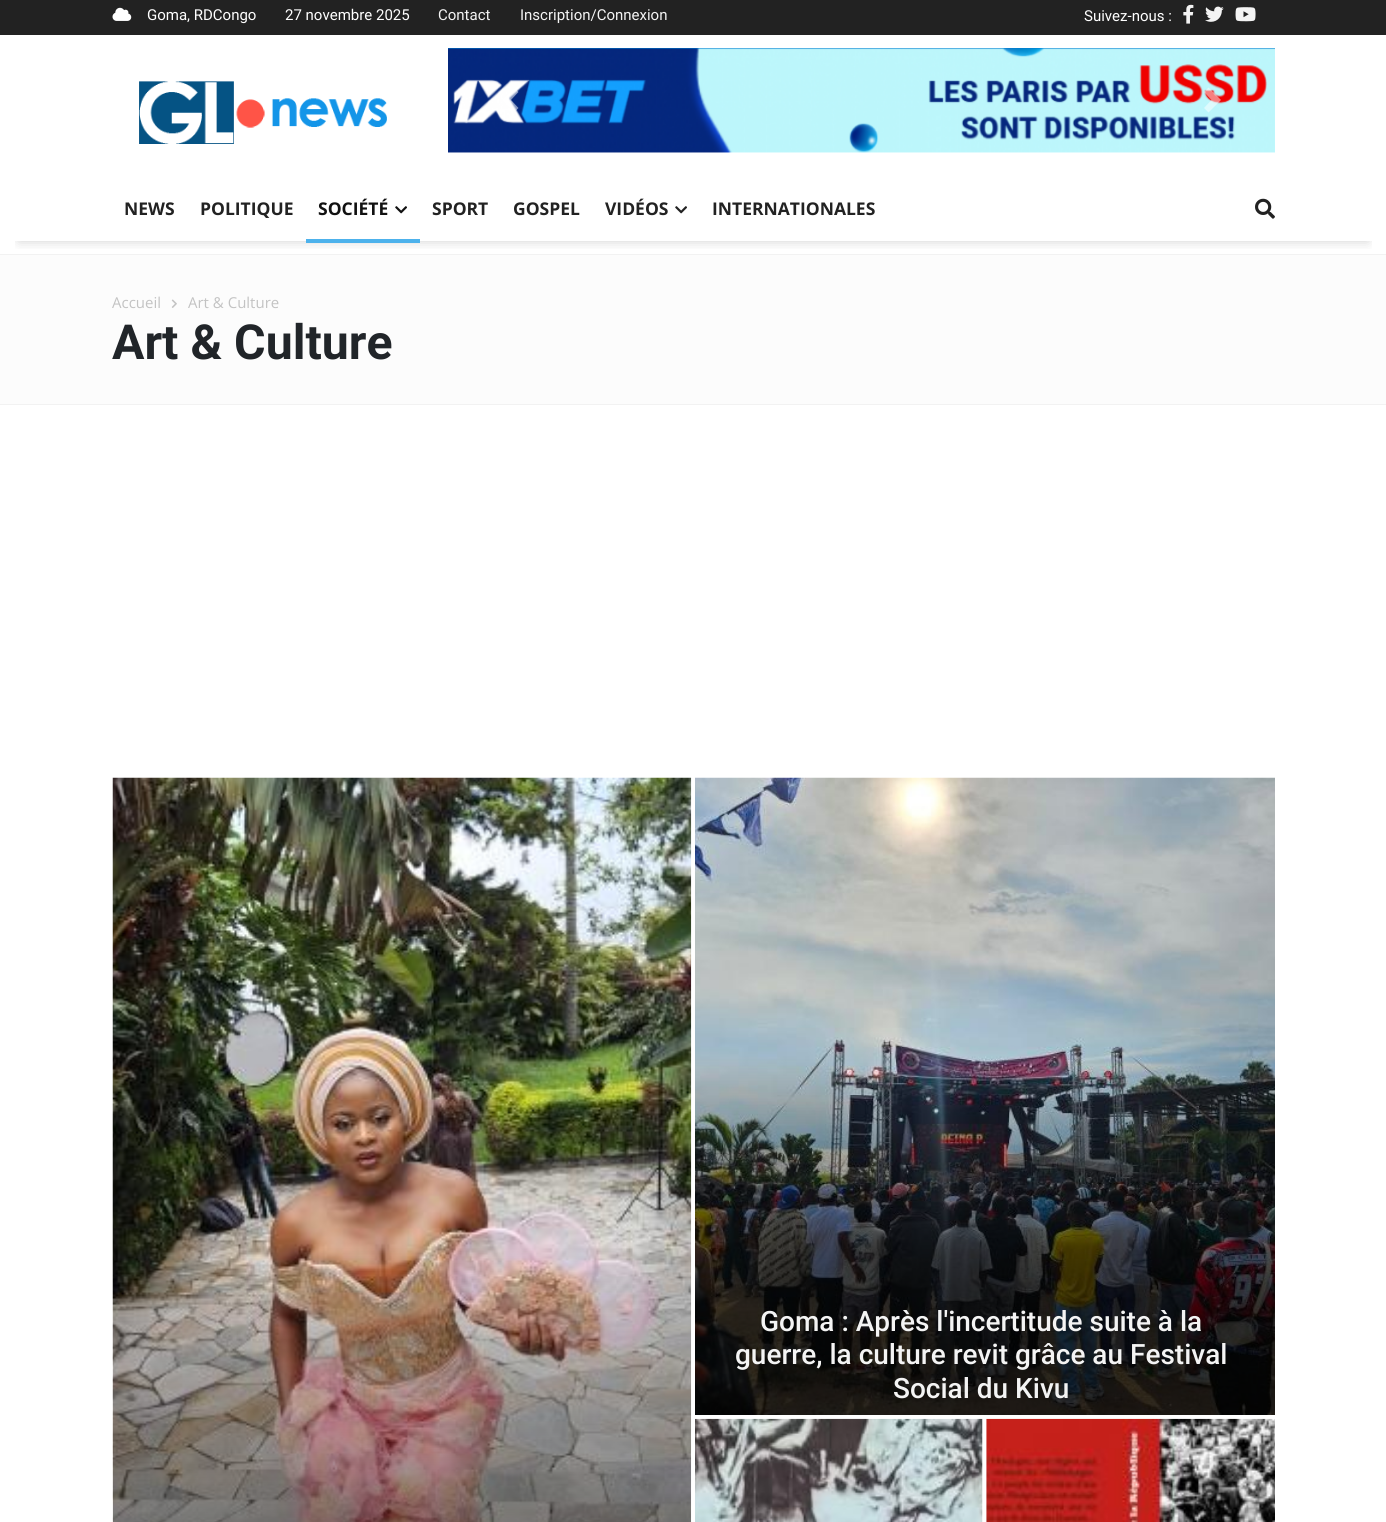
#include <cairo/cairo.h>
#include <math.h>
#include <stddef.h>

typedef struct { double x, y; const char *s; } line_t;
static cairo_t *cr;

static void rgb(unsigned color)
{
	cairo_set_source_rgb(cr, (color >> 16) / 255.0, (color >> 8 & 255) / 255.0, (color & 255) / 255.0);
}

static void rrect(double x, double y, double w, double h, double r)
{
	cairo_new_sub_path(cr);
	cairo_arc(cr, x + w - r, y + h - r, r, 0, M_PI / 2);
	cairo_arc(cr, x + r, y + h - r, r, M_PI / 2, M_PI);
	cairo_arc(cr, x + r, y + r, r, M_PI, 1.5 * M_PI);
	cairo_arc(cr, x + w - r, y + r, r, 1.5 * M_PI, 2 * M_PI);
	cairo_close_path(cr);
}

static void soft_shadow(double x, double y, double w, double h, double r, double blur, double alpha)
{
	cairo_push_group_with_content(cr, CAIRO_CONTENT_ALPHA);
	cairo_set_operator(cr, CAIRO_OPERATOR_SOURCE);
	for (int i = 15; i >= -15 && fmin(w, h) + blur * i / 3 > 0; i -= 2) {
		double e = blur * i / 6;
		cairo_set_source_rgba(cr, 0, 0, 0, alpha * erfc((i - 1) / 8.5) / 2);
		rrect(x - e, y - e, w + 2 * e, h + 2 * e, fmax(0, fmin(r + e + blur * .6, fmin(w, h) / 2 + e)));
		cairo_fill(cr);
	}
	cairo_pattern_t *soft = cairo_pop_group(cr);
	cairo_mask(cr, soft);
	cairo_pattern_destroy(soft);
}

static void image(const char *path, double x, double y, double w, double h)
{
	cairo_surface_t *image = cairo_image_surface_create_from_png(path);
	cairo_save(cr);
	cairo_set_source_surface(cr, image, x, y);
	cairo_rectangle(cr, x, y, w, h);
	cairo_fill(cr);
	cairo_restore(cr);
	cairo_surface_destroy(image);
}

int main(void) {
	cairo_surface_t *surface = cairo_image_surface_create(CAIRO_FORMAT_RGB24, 1386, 1522);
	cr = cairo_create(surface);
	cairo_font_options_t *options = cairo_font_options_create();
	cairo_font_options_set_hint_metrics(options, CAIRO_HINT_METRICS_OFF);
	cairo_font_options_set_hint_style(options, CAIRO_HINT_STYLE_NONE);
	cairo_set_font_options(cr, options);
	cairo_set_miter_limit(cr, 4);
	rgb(0xffffff);
	cairo_paint(cr);
	rgb(0x222222);
	cairo_rectangle(cr, 0, 0, 1386, 35);
	cairo_fill(cr);
	image("img/1.png", 112, 7, 20, 14);
	image("img/2.png", 1183, 4, 11, 20);
	image("img/3.png", 1205, 6, 19, 16);
	image("img/4.png", 1235, 7, 21, 15);
	image("img/5.png", 139, 81, 248, 63);
	image("img/6.png", 448, 48, 827, 105);
	cairo_set_source_rgba(cr, 1, 1, 1, 0.5);
	cairo_new_path(cr);
	cairo_move_to(cr, 514, 87.5);
	cairo_line_to(cr, 501.5, 100);
	cairo_line_to(cr, 514, 112.5);
	cairo_line_to(cr, 518.5, 108);
	cairo_line_to(cr, 511, 100);
	cairo_line_to(cr, 518.5, 92);
	cairo_close_path(cr);
	cairo_fill(cr);
	cairo_new_path(cr);
	cairo_move_to(cr, 1208.5, 87.5);
	cairo_line_to(cr, 1204, 92);
	cairo_line_to(cr, 1211.5, 100);
	cairo_line_to(cr, 1204, 108);
	cairo_line_to(cr, 1208.5, 112.5);
	cairo_line_to(cr, 1221, 100);
	cairo_close_path(cr);
	cairo_fill(cr);
	rgb(0xfcfcfc);
	cairo_rectangle(cr, 0, 255, 1386, 149);
	cairo_fill(cr);
	rgb(0xf2f2f2);
	cairo_rectangle(cr, 0, 254, 1386, 1);
	cairo_fill(cr);
	cairo_save(cr);
	cairo_rectangle(cr, 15, 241, 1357, 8);
	cairo_clip(cr);
	rgb(0x121212);
	soft_shadow(19, 216, 1349, 25, 0, 6, 0.2);
	cairo_restore(cr);
	rgb(0x4db2ec);
	cairo_rectangle(cr, 306, 239, 114, 4);
	cairo_fill(cr);
	image("img/7.png", 395, 206, 12, 8);
	image("img/8.png", 675, 206, 12, 8);
	image("img/9.png", 1255, 198, 20, 21);
	rgb(0xf2f2f2);
	cairo_rectangle(cr, 0, 404, 1386, 1);
	cairo_fill(cr);
	image("img/10.png", 171, 299, 6, 9);
	image("img/11.png", 112, 777, 580, 745);
	image("img/12.png", 695, 777, 580, 638);
	image("img/13.png", 695, 1418, 288, 104);
	image("img/14.png", 986, 1418, 289, 104);
	cairo_select_font_face(cr, "Roboto", CAIRO_FONT_SLANT_NORMAL, CAIRO_FONT_WEIGHT_NORMAL);
	cairo_set_font_size(cr, 15);
	rgb(0xffffff);
	cairo_move_to(cr, 147, 20);
	cairo_show_text(cr, "Goma, RDCongo");
	cairo_move_to(cr, 285, 20);
	cairo_show_text(cr, "27 novembre 2025");
	rgb(0xf4f4f4);
	cairo_move_to(cr, 438, 20);
	cairo_show_text(cr, "Contact");
	cairo_move_to(cr, 520, 20);
	cairo_show_text(cr, "Inscription/Connexion");
	rgb(0xffffff);
	cairo_move_to(cr, 1084, 21);
	cairo_show_text(cr, "Suivez-nous :");
	cairo_select_font_face(cr, "Open Sans", CAIRO_FONT_SLANT_NORMAL, CAIRO_FONT_WEIGHT_BOLD);
	cairo_set_font_size(cr, 17.5);
	rgb(0x222222);
	cairo_move_to(cr, 124, 215);
	cairo_show_text(cr, "NEWS");
	cairo_move_to(cr, 200, 215);
	cairo_show_text(cr, "POLITIQUE");
	rgb(0x111111);
	cairo_move_to(cr, 318, 215);
	cairo_show_text(cr, "SOCIÉTÉ");
	rgb(0x222222);
	{
		static const line_t items[] = {
			{432, 215, "SPORT"},
			{513, 215, "GOSPEL"},
			{605, 215, "VIDÉOS"},
			{712, 215, "INTERNATIONALES"},
		};
		for (size_t i = 0; i < sizeof items / sizeof *items; i++) {
			cairo_move_to(cr, items[i].x, items[i].y);
			cairo_show_text(cr, items[i].s);
		}
	}
	cairo_select_font_face(cr, "Open Sans", CAIRO_FONT_SLANT_NORMAL, CAIRO_FONT_WEIGHT_NORMAL);
	cairo_set_font_size(cr, 15);
	rgb(0xc3c3c3);
	cairo_move_to(cr, 112, 308);
	cairo_show_text(cr, "Accueil");
	cairo_move_to(cr, 188, 308);
	cairo_show_text(cr, "Art & Culture");
	cairo_select_font_face(cr, "Roboto", CAIRO_FONT_SLANT_NORMAL, CAIRO_FONT_WEIGHT_BOLD);
	cairo_set_font_size(cr, 48.25);
	rgb(0x212529);
	cairo_move_to(cr, 112, 359);
	cairo_show_text(cr, "Art & Culture");
	cairo_select_font_face(cr, "Roboto Medium", CAIRO_FONT_SLANT_NORMAL, CAIRO_FONT_WEIGHT_NORMAL);
	cairo_set_font_size(cr, 28);
	rgb(0xf4f4f4);
	{
		static const line_t items[] = {
			{760, 1331, "Goma : Après l'incertitude suite à la"},
			{735, 1364, "guerre, la culture revit grâce au Festival"},
			{893, 1398, "Social du Kivu"},
		};
		for (size_t i = 0; i < sizeof items / sizeof *items; i++) {
			cairo_move_to(cr, items[i].x, items[i].y);
			cairo_show_text(cr, items[i].s);
		}
	}
	cairo_surface_write_to_png(surface, "page.png");
	cairo_font_options_destroy(options);
	cairo_destroy(cr);
	cairo_surface_destroy(surface);
	return 0;
}
